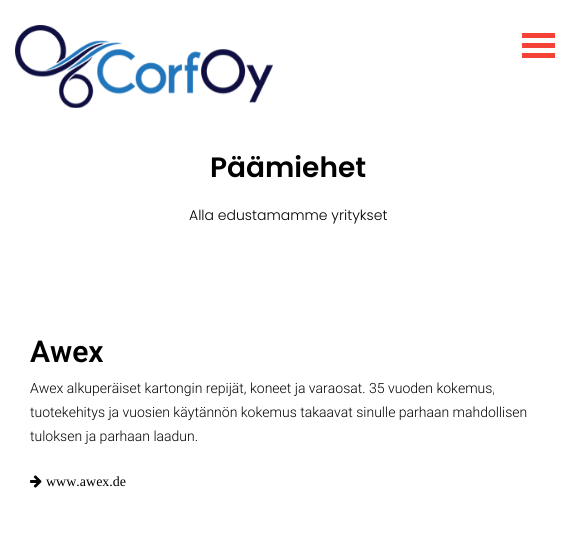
#include <cairo/cairo.h>
#include <math.h>
#include <stddef.h>

typedef struct { double x, y; const char *s; } line_t;
typedef struct { double x, y, w, h; unsigned color; } box_t;
static cairo_t *cr;

static void rgb(unsigned color)
{
	cairo_set_source_rgb(cr, (color >> 16) / 255.0, (color >> 8 & 255) / 255.0, (color & 255) / 255.0);
}

static void image(const char *path, double x, double y, double w, double h)
{
	cairo_surface_t *image = cairo_image_surface_create_from_png(path);
	cairo_save(cr);
	cairo_set_source_surface(cr, image, x, y);
	cairo_rectangle(cr, x, y, w, h);
	cairo_fill(cr);
	cairo_restore(cr);
	cairo_surface_destroy(image);
}

int main(void) {
	cairo_surface_t *surface = cairo_image_surface_create(CAIRO_FORMAT_RGB24, 577, 560);
	cr = cairo_create(surface);
	cairo_font_options_t *options = cairo_font_options_create();
	cairo_font_options_set_hint_metrics(options, CAIRO_HINT_METRICS_OFF);
	cairo_font_options_set_hint_style(options, CAIRO_HINT_STYLE_NONE);
	cairo_set_font_options(cr, options);
	cairo_set_miter_limit(cr, 4);
	rgb(0xffffff);
	cairo_paint(cr);
	image("img/1.png", 15, 25, 258, 83);
	{
		static const box_t items[] = {
			{522, 53, 33, 5, 0xf44336},
			{522, 43, 33, 5, 0xf44336},
			{522, 33, 33, 5, 0xf44336},
		};
		for (size_t i = 0; i < sizeof items / sizeof *items; i++) {
			rgb(items[i].color);
			cairo_rectangle(cr, items[i].x, items[i].y, items[i].w, items[i].h);
			cairo_fill(cr);
		}
	}
	image("img/2.png", 30, 475, 12, 13);
	cairo_select_font_face(cr, "Poppins SemiBold", CAIRO_FONT_SLANT_NORMAL, CAIRO_FONT_WEIGHT_NORMAL);
	cairo_set_font_size(cr, 28);
	rgb(0x000000);
	cairo_move_to(cr, 210, 177);
	cairo_show_text(cr, "Päämiehet");
	cairo_select_font_face(cr, "Poppins Light", CAIRO_FONT_SLANT_NORMAL, CAIRO_FONT_WEIGHT_NORMAL);
	cairo_set_font_size(cr, 14);
	cairo_move_to(cr, 189, 220);
	cairo_show_text(cr, "Alla edustamamme yritykset");
	cairo_select_font_face(cr, "Roboto SemiBold", CAIRO_FONT_SLANT_NORMAL, CAIRO_FONT_WEIGHT_NORMAL);
	cairo_set_font_size(cr, 30);
	cairo_move_to(cr, 30, 362);
	cairo_show_text(cr, "Awex");
	cairo_select_font_face(cr, "Roboto Light", CAIRO_FONT_SLANT_NORMAL, CAIRO_FONT_WEIGHT_NORMAL);
	cairo_set_font_size(cr, 14);
	{
		static const line_t items[] = {
			{30, 393, "Awex alkuperäiset kartongin repijät, koneet ja varaosat. 35 vuoden kokemus,"},
			{30, 417, "tuotekehitys ja vuosien käytännön kokemus takaavat sinulle parhaan mahdollisen"},
			{30, 441, "tuloksen ja parhaan laadun."},
		};
		for (size_t i = 0; i < sizeof items / sizeof *items; i++) {
			cairo_move_to(cr, items[i].x, items[i].y);
			cairo_show_text(cr, items[i].s);
		}
	}
	cairo_select_font_face(cr, "Liberation Serif", CAIRO_FONT_SLANT_NORMAL, CAIRO_FONT_WEIGHT_NORMAL);
	cairo_move_to(cr, 46, 486);
	cairo_show_text(cr, "www.awex.de");
	cairo_surface_write_to_png(surface, "page.png");
	cairo_font_options_destroy(options);
	cairo_destroy(cr);
	cairo_surface_destroy(surface);
	return 0;
}
